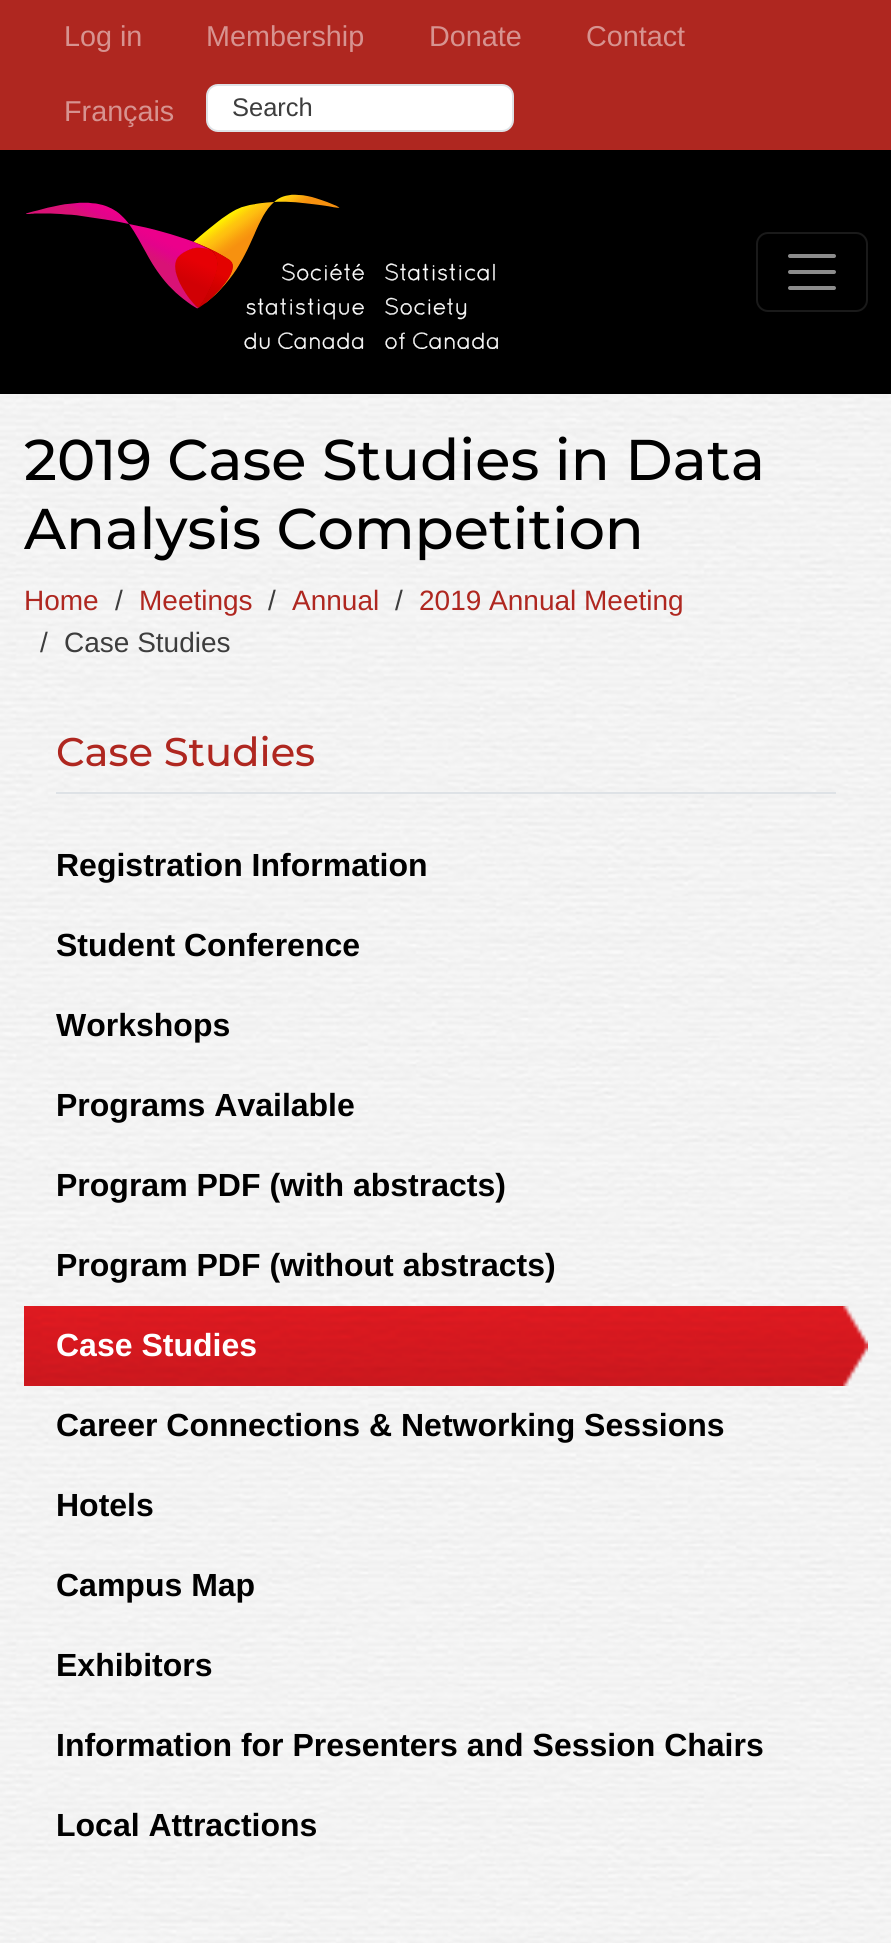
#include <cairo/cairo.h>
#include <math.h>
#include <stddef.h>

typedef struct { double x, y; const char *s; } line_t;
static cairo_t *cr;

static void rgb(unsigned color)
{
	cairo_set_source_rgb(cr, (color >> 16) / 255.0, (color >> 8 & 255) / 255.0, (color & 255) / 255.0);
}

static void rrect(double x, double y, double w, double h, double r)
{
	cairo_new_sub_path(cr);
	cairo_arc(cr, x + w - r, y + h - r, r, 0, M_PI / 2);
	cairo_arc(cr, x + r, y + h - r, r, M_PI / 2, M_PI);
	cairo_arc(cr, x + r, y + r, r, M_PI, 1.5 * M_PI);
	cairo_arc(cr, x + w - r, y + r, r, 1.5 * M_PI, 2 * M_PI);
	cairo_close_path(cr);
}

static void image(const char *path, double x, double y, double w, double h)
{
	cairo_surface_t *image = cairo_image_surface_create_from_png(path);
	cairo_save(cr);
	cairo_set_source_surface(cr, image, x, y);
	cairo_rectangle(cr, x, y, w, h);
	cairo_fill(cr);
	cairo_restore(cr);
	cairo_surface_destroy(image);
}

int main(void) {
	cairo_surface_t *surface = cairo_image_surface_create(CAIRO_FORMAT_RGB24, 891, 1943);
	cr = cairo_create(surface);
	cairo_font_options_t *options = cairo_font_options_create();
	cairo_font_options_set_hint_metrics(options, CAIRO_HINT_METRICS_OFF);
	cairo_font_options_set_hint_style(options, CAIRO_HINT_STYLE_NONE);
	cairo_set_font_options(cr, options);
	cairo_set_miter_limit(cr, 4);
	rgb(0xffffff);
	cairo_paint(cr);
	image("img/1.png", 0, 394, 891, 1549);
	rgb(0xaf2720);
	cairo_rectangle(cr, 0, 0, 891, 150);
	cairo_fill(cr);
	rgb(0xffffff);
	rrect(207, 85, 306, 46, 11);
	cairo_fill_preserve(cr);
	rgb(0xdee2e6);
	cairo_stroke(cr);
	rgb(0x000000);
	cairo_rectangle(cr, 0, 150, 891, 244);
	cairo_fill(cr);
	image("img/2.png", 26, 194, 472, 156);
	rrect(757, 233, 110, 78, 11);
	rgb(0x1a1a1a);
	cairo_stroke(cr);
	cairo_new_path(cr);
	cairo_move_to(cr, 790, 256);
	cairo_line_to(cr, 834, 256);
	cairo_move_to(cr, 790, 272);
	cairo_line_to(cr, 834, 272);
	cairo_move_to(cr, 790, 288);
	cairo_line_to(cr, 834, 288);
	rgb(0x8c8c8c);
	cairo_set_line_width(cr, 4);
	cairo_set_line_cap(cr, CAIRO_LINE_CAP_ROUND);
	cairo_stroke(cr);
	rgb(0xdee2e6);
	cairo_rectangle(cr, 56, 792, 780, 2);
	cairo_fill(cr);
	image("img/3.png", 24, 1306, 844, 80);
	cairo_select_font_face(cr, "Liberation Sans", CAIRO_FONT_SLANT_NORMAL, CAIRO_FONT_WEIGHT_NORMAL);
	cairo_set_font_size(cr, 28.75);
	rgb(0xd79390);
	{
		static const line_t items[] = {
			{64, 46, "Log in"},
			{206, 46, "Membership"},
			{429, 46, "Donate"},
			{586, 46, "Contact"},
			{64, 121, "Français"},
		};
		for (size_t i = 0; i < sizeof items / sizeof *items; i++) {
			cairo_move_to(cr, items[i].x, items[i].y);
			cairo_show_text(cr, items[i].s);
		}
	}
	cairo_set_font_size(cr, 25.5);
	rgb(0x3d3d3d);
	cairo_move_to(cr, 232, 116);
	cairo_show_text(cr, "Search");
	cairo_select_font_face(cr, "Montserrat Medium", CAIRO_FONT_SLANT_NORMAL, CAIRO_FONT_WEIGHT_NORMAL);
	cairo_set_font_size(cr, 57.4);
	rgb(0x000000);
	cairo_move_to(cr, 24, 480);
	cairo_show_text(cr, "2019 Case Studies in Data");
	cairo_move_to(cr, 24, 549);
	cairo_show_text(cr, "Analysis Competition");
	cairo_select_font_face(cr, "Liberation Sans", CAIRO_FONT_SLANT_NORMAL, CAIRO_FONT_WEIGHT_NORMAL);
	cairo_set_font_size(cr, 28);
	rgb(0xaf2720);
	cairo_move_to(cr, 24, 610);
	cairo_show_text(cr, "Home");
	rgb(0x3d3d3d);
	cairo_move_to(cr, 115, 610);
	cairo_show_text(cr, "/");
	rgb(0xaf2720);
	cairo_move_to(cr, 139, 610);
	cairo_show_text(cr, "Meetings");
	rgb(0x3d3d3d);
	cairo_move_to(cr, 268, 610);
	cairo_show_text(cr, "/");
	rgb(0xaf2720);
	cairo_move_to(cr, 292, 610);
	cairo_show_text(cr, "Annual");
	rgb(0x3d3d3d);
	cairo_move_to(cr, 395, 610);
	cairo_show_text(cr, "/");
	rgb(0xaf2720);
	cairo_move_to(cr, 419, 610);
	cairo_show_text(cr, "2019 Annual Meeting");
	rgb(0x3d3d3d);
	cairo_move_to(cr, 40, 652);
	cairo_show_text(cr, "/");
	cairo_move_to(cr, 64, 652);
	cairo_show_text(cr, "Case Studies");
	cairo_select_font_face(cr, "Montserrat Medium", CAIRO_FONT_SLANT_NORMAL, CAIRO_FONT_WEIGHT_NORMAL);
	cairo_set_font_size(cr, 40);
	rgb(0xaf2720);
	cairo_move_to(cr, 56, 766);
	cairo_show_text(cr, "Case Studies");
	cairo_select_font_face(cr, "Liberation Sans", CAIRO_FONT_SLANT_NORMAL, CAIRO_FONT_WEIGHT_BOLD);
	cairo_set_font_size(cr, 32);
	rgb(0x000000);
	{
		static const line_t items[] = {
			{56, 876, "Registration Information"},
			{56, 956, "Student Conference"},
			{56, 1036, "Workshops"},
			{56, 1116, "Programs Available"},
			{56, 1196, "Program PDF (with abstracts)"},
			{56, 1276, "Program PDF (without abstracts)"},
		};
		for (size_t i = 0; i < sizeof items / sizeof *items; i++) {
			cairo_move_to(cr, items[i].x, items[i].y);
			cairo_show_text(cr, items[i].s);
		}
	}
	rgb(0xffffff);
	cairo_move_to(cr, 56, 1356);
	cairo_show_text(cr, "Case Studies");
	rgb(0x000000);
	{
		static const line_t items[] = {
			{56, 1436, "Career Connections & Networking Sessions"},
			{56, 1516, "Hotels"},
			{56, 1596, "Campus Map"},
			{56, 1676, "Exhibitors"},
			{56, 1756, "Information for Presenters and Session Chairs"},
			{56, 1836, "Local Attractions"},
		};
		for (size_t i = 0; i < sizeof items / sizeof *items; i++) {
			cairo_move_to(cr, items[i].x, items[i].y);
			cairo_show_text(cr, items[i].s);
		}
	}
	cairo_surface_write_to_png(surface, "page.png");
	cairo_font_options_destroy(options);
	cairo_destroy(cr);
	cairo_surface_destroy(surface);
	return 0;
}
